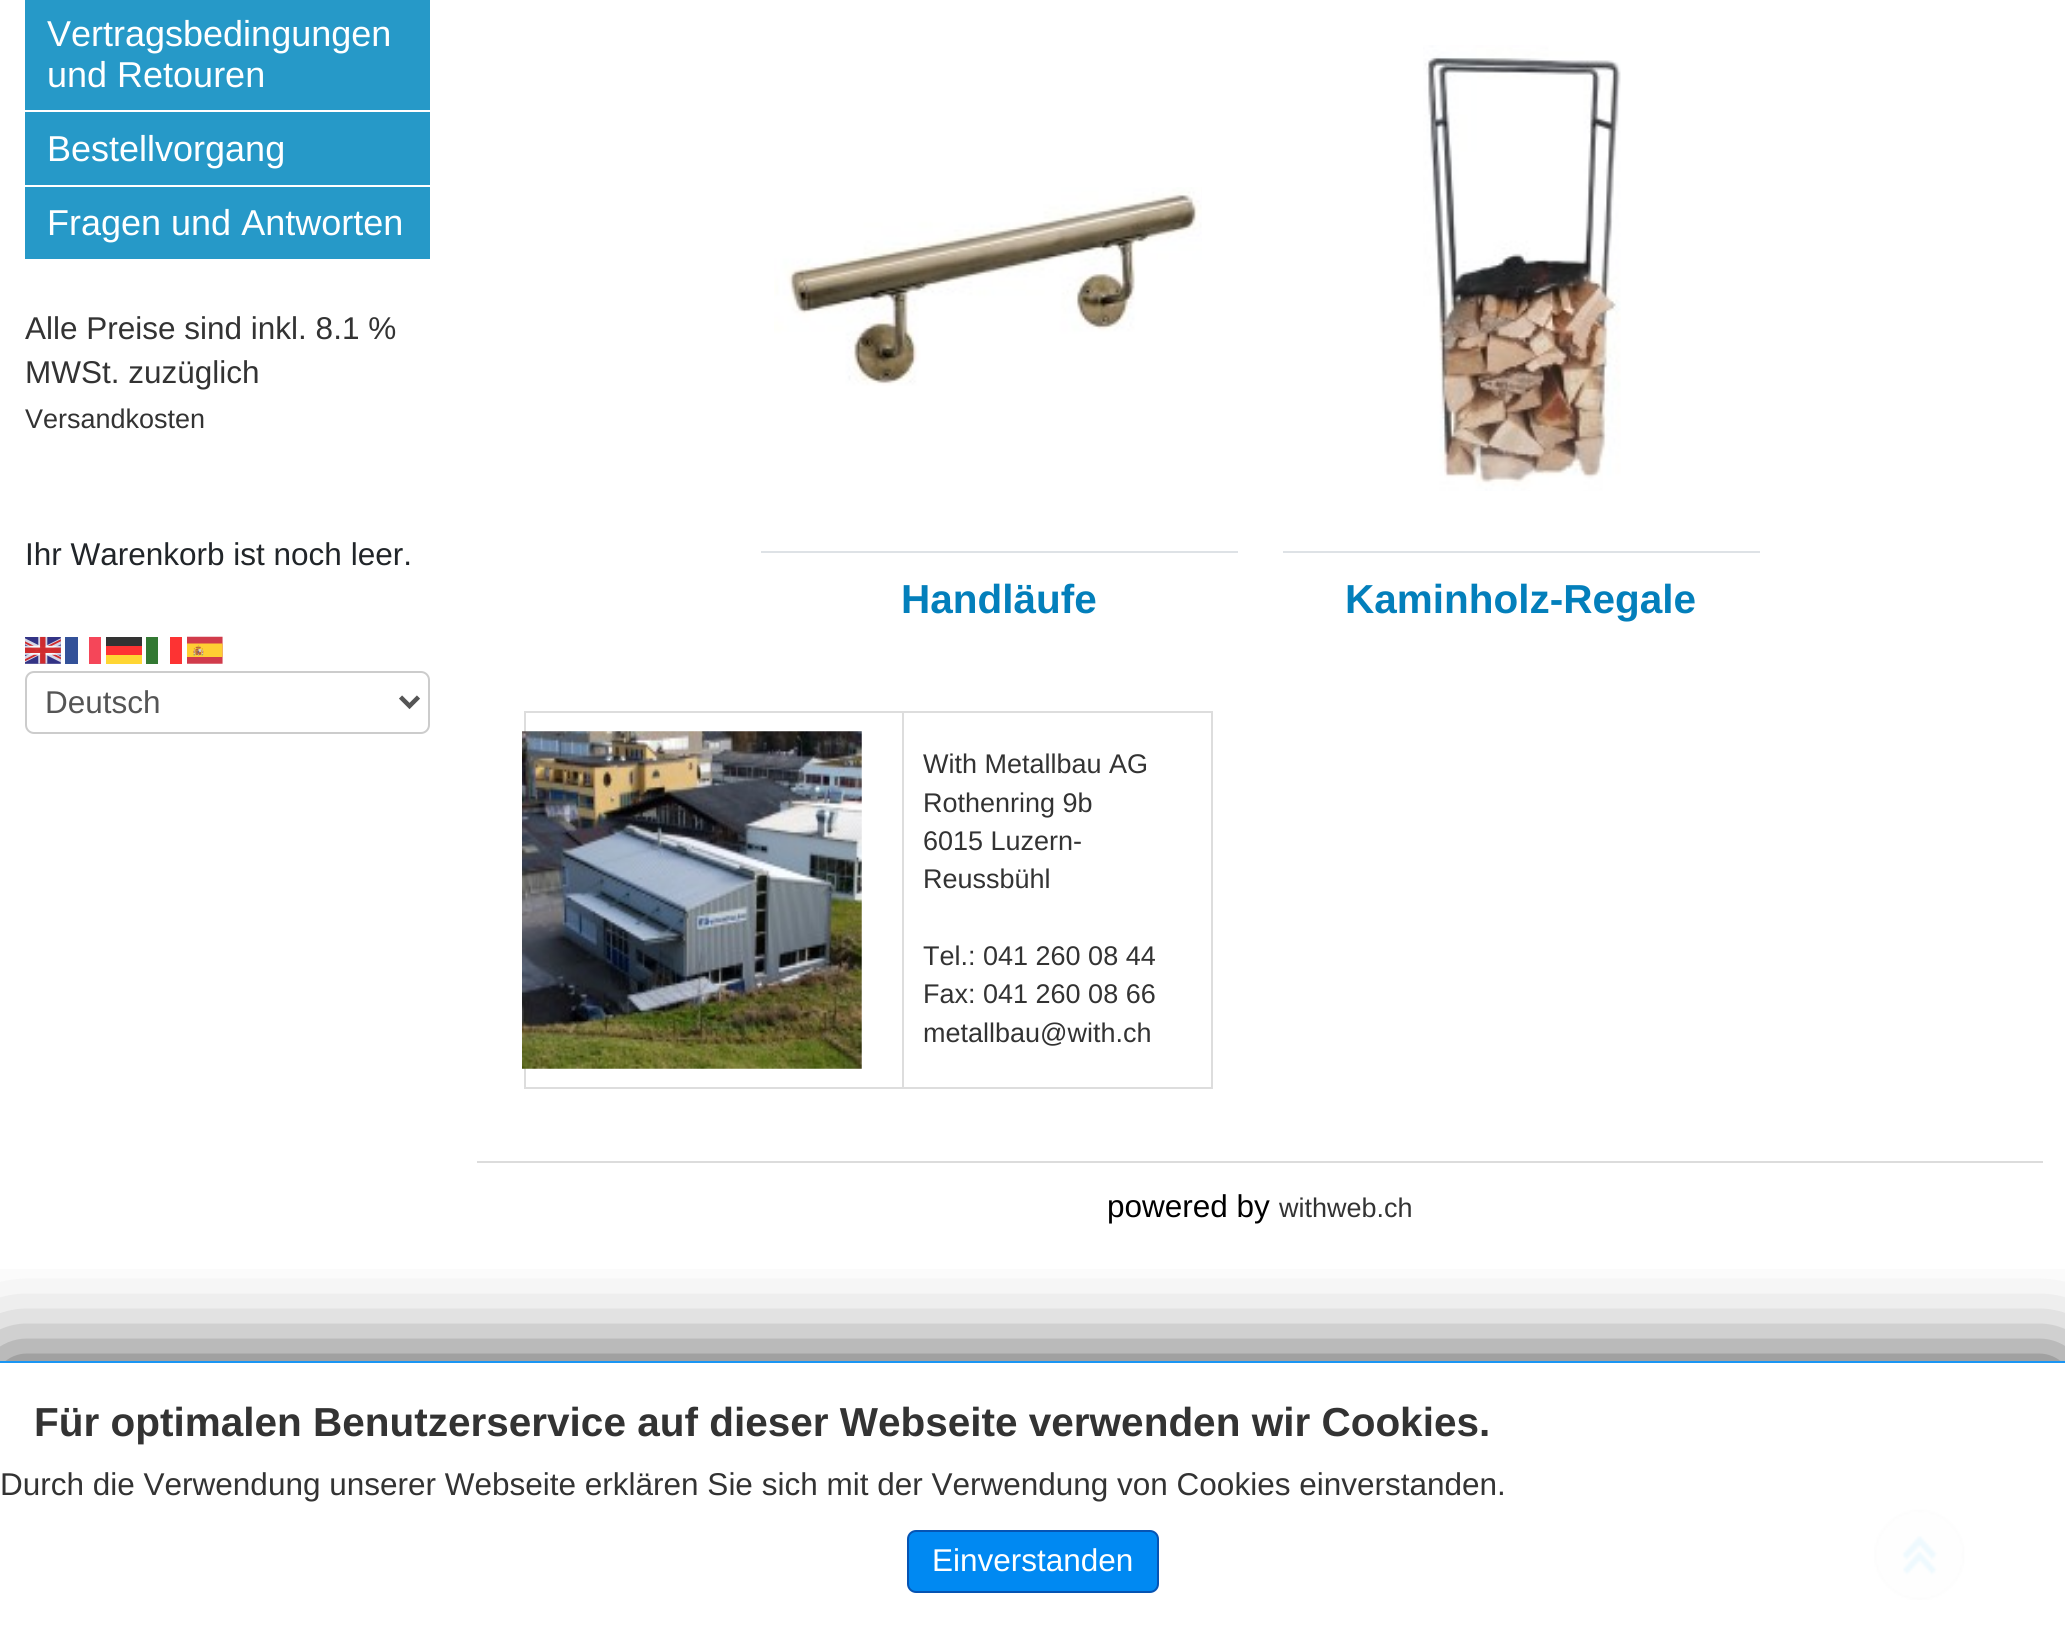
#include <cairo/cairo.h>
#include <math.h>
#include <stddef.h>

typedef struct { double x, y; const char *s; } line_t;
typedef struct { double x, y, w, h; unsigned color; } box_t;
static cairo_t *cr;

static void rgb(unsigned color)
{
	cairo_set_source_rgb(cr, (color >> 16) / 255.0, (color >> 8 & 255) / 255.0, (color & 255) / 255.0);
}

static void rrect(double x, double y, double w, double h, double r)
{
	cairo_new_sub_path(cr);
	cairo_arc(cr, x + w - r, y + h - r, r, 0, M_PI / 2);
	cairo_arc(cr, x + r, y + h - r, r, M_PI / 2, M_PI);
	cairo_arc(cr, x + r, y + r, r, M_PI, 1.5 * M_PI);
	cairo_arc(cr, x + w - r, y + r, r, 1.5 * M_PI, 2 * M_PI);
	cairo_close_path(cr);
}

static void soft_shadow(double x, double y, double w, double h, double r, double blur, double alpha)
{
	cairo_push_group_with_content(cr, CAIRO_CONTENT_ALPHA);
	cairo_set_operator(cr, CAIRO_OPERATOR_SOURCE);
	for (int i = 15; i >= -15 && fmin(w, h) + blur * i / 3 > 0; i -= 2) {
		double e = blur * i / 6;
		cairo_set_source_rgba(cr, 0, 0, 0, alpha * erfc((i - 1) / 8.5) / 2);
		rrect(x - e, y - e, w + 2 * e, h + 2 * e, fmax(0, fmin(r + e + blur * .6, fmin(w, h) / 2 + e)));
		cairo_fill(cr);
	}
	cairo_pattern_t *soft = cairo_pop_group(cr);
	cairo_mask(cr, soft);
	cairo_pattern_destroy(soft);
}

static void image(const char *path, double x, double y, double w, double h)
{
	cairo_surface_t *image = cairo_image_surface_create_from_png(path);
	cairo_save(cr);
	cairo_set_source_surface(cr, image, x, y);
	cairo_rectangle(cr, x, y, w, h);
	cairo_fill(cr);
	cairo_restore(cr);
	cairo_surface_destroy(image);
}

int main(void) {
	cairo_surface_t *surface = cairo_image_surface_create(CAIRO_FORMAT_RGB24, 2065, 1637);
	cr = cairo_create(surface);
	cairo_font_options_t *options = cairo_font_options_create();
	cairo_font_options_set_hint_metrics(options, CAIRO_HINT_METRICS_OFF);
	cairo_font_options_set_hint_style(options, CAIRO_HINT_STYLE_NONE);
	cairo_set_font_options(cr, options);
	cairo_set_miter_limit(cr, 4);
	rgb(0xffffff);
	cairo_paint(cr);
	image("img/1.png", 0, 1636, 1, 1);
	rgb(0xffffff);
	rrect(0, -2, 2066, 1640, 2);
	cairo_fill(cr);
	{
		static const box_t items[] = {
			{25, 0, 405, 259, 0x2699c8},
			{25, 110, 405, 2, 0xffffff},
			{25, 185, 405, 2, 0xffffff},
		};
		for (size_t i = 0; i < sizeof items / sizeof *items; i++) {
			rgb(items[i].color);
			cairo_rectangle(cr, items[i].x, items[i].y, items[i].w, items[i].h);
			cairo_fill(cr);
		}
	}
	image("img/2.png", 25, 636, 36, 28);
	{
		static const box_t items[] = {
			{65, 637, 13, 27, 0x335199},
			{89, 637, 12, 27, 0xf54659},
			{106, 637, 36, 9, 0x333333},
			{146, 637, 12, 27, 0x337933},
			{170, 637, 12, 27, 0xfd3333},
		};
		for (size_t i = 0; i < sizeof items / sizeof *items; i++) {
			rgb(items[i].color);
			cairo_rectangle(cr, items[i].x, items[i].y, items[i].w, items[i].h);
			cairo_fill(cr);
		}
	}
	image("img/3.png", 187, 636, 36, 28);
	rgb(0xff3333);
	cairo_rectangle(cr, 106, 646, 36, 9);
	cairo_fill(cr);
	rgb(0xffd633);
	cairo_rectangle(cr, 106, 655, 36, 9);
	cairo_fill(cr);
	rrect(26, 672, 403, 61, 8);
	rgb(0xcccccc);
	cairo_stroke(cr);
	cairo_new_path(cr);
	cairo_move_to(cr, 400.5, 697);
	cairo_line_to(cr, 409.5, 706);
	cairo_line_to(cr, 418.5, 697);
	rgb(0x555555);
	cairo_set_line_width(cr, 4.5);
	cairo_stroke(cr);
	image("img/4.png", 774, 187, 428, 199);
	rgb(0xdee2e6);
	cairo_rectangle(cr, 761, 551, 477, 2);
	cairo_fill(cr);
	image("img/5.png", 1423, 45, 198, 446);
	{
		static const box_t items[] = {
			{1283, 551, 477, 2, 0xdee2e6},
			{524, 711, 689, 2, 0xdddddd},
			{1211, 711, 2, 378, 0xdddddd},
			{524, 1087, 689, 2, 0xdddddd},
			{524, 711, 2, 378, 0xdddddd},
		};
		for (size_t i = 0; i < sizeof items / sizeof *items; i++) {
			rgb(items[i].color);
			cairo_rectangle(cr, items[i].x, items[i].y, items[i].w, items[i].h);
			cairo_fill(cr);
		}
	}
	image("img/6.png", 522, 731, 340, 338);
	cairo_rectangle(cr, 902, 711, 2, 378);
	cairo_fill(cr);
	image("img/7.png", 1874, 1509, 91, 91);
	cairo_save(cr);
	cairo_rectangle(cr, 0, 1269, 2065, 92);
	cairo_clip(cr);
	rgb(0x444444);
	soft_shadow(0, 1361, 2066, 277, 0, 45, 1);
	cairo_restore(cr);
	cairo_set_source_rgba(cr, 1, 1, 1, 0.9);
	cairo_rectangle(cr, 0, 1509, 1965, 128);
	cairo_fill(cr);
	rgb(0x1995f3);
	cairo_rectangle(cr, 0, 1361, 2065, 2);
	cairo_fill(cr);
	rgb(0x0089f2);
	rrect(908, 1531, 250, 61, 8);
	cairo_fill_preserve(cr);
	rgb(0x0654b3);
	cairo_set_line_width(cr, 2);
	cairo_stroke(cr);
	rgb(0xdcdcdc);
	cairo_rectangle(cr, 477, 1161, 1566, 2);
	cairo_fill(cr);
	cairo_select_font_face(cr, "Liberation Sans", CAIRO_FONT_SLANT_NORMAL, CAIRO_FONT_WEIGHT_NORMAL);
	cairo_set_font_size(cr, 36);
	rgb(0xffffff);
	{
		static const line_t items[] = {
			{47, 46, "Vertragsbedingungen"},
			{47, 87, "und Retouren"},
			{47, 161, "Bestellvorgang"},
			{47, 235, "Fragen und Antworten"},
		};
		for (size_t i = 0; i < sizeof items / sizeof *items; i++) {
			cairo_move_to(cr, items[i].x, items[i].y);
			cairo_show_text(cr, items[i].s);
		}
	}
	cairo_set_font_size(cr, 31.5);
	rgb(0x333333);
	cairo_move_to(cr, 25, 339);
	cairo_show_text(cr, "Alle Preise sind inkl. 8.1 %");
	cairo_move_to(cr, 25, 383);
	cairo_show_text(cr, "MWSt. zuzüglich");
	cairo_set_font_size(cr, 27);
	cairo_move_to(cr, 25, 428);
	cairo_show_text(cr, "Versandkosten");
	cairo_set_font_size(cr, 31.5);
	rgb(0x212529);
	cairo_move_to(cr, 25, 565);
	cairo_show_text(cr, "Ihr Warenkorb ist noch leer.");
	rgb(0x555555);
	cairo_move_to(cr, 45, 713);
	cairo_show_text(cr, "Deutsch");
	cairo_select_font_face(cr, "Liberation Sans", CAIRO_FONT_SLANT_NORMAL, CAIRO_FONT_WEIGHT_BOLD);
	cairo_set_font_size(cr, 40.5);
	rgb(0x037fbb);
	cairo_move_to(cr, 901, 613);
	cairo_show_text(cr, "Handläufe");
	cairo_move_to(cr, 1345, 613);
	cairo_show_text(cr, "Kaminholz-Regale");
	cairo_select_font_face(cr, "Liberation Sans", CAIRO_FONT_SLANT_NORMAL, CAIRO_FONT_WEIGHT_NORMAL);
	cairo_set_font_size(cr, 27);
	rgb(0x333333);
	{
		static const line_t items[] = {
			{923, 773, "With Metallbau AG"},
			{923, 812, "Rothenring 9b"},
			{923, 850, "6015 Luzern-"},
			{923, 888, "Reussbühl"},
			{923, 965, "Tel.: 041 260 08 44"},
			{923, 1003, "Fax: 041 260 08 66"},
			{923, 1042, "metallbau@with.ch"},
		};
		for (size_t i = 0; i < sizeof items / sizeof *items; i++) {
			cairo_move_to(cr, items[i].x, items[i].y);
			cairo_show_text(cr, items[i].s);
		}
	}
	cairo_select_font_face(cr, "Liberation Sans", CAIRO_FONT_SLANT_NORMAL, CAIRO_FONT_WEIGHT_BOLD);
	cairo_set_font_size(cr, 40.5);
	cairo_move_to(cr, 34, 1436);
	cairo_show_text(cr, "Für optimalen Benutzerservice auf dieser Webseite verwenden wir Cookies.");
	cairo_select_font_face(cr, "Liberation Sans", CAIRO_FONT_SLANT_NORMAL, CAIRO_FONT_WEIGHT_NORMAL);
	cairo_set_font_size(cr, 31.5);
	cairo_move_to(cr, 0, 1495);
	cairo_show_text(cr, "Durch die Verwendung unserer Webseite erklären Sie sich mit der Verwendung von Cookies einverstanden.");
	rgb(0xffffff);
	cairo_move_to(cr, 932, 1571);
	cairo_show_text(cr, "Einverstanden");
	rgb(0x000000);
	cairo_move_to(cr, 1107, 1217);
	cairo_show_text(cr, "powered by");
	cairo_set_font_size(cr, 27);
	rgb(0x333333);
	cairo_move_to(cr, 1279, 1217);
	cairo_show_text(cr, "withweb.ch");
	cairo_surface_write_to_png(surface, "page.png");
	cairo_font_options_destroy(options);
	cairo_destroy(cr);
	cairo_surface_destroy(surface);
	return 0;
}
